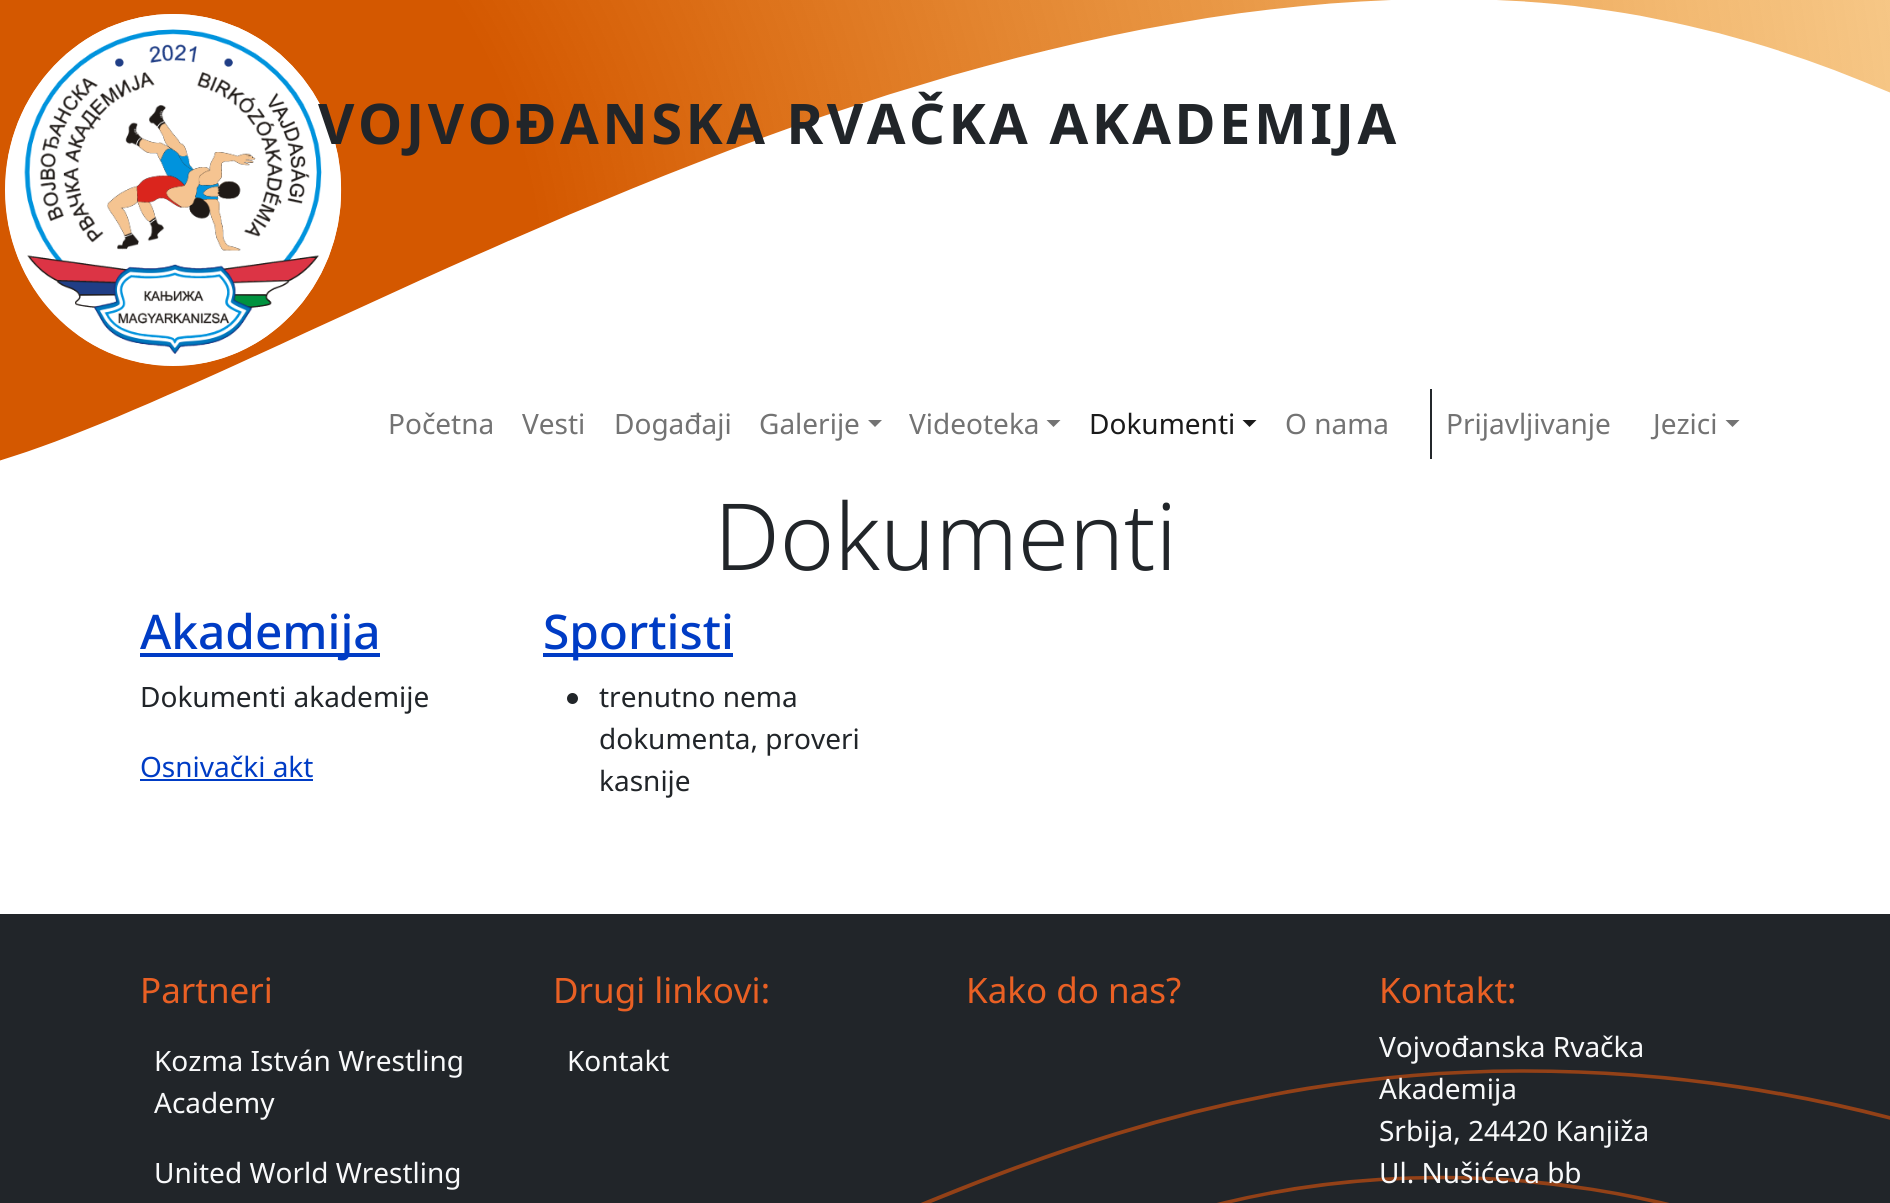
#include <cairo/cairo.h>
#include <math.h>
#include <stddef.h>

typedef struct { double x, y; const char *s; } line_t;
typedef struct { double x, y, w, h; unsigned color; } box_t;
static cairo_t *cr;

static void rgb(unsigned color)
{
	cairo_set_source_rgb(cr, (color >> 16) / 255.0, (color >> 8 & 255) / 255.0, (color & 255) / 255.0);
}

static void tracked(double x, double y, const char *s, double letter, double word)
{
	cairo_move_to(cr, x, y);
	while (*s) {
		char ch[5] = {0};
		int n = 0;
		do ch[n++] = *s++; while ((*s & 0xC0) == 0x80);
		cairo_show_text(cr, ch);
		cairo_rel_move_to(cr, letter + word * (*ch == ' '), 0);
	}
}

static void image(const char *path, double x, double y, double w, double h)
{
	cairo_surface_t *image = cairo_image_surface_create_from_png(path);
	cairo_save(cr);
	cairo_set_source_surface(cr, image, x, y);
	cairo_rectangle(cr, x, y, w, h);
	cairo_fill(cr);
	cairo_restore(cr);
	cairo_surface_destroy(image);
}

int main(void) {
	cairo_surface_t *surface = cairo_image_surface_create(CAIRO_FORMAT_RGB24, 1890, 1203);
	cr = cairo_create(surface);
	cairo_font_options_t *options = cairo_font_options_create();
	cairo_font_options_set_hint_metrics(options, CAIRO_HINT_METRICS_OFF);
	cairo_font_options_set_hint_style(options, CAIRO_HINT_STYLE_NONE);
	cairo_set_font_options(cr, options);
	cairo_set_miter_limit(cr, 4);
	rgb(0xffffff);
	cairo_paint(cr);
	image("img/1.png", 0, 0, 1890, 461);
	rgb(0xffffff);
	cairo_new_path(cr);
	cairo_move_to(cr, 173, 14);
	cairo_curve_to(cr, 266, 14, 341, 93, 341, 190);
	cairo_curve_to(cr, 341, 287, 266, 366, 173, 366);
	cairo_curve_to(cr, 80, 366, 5, 287, 5, 190);
	cairo_curve_to(cr, 5, 93, 80, 14, 173, 14);
	cairo_close_path(cr);
	cairo_fill(cr);
	image("img/2.png", 5, 14, 337, 352);
	rgb(0x737373);
	cairo_new_path(cr);
	cairo_move_to(cr, 868, 420);
	cairo_line_to(cr, 882, 420);
	cairo_line_to(cr, 875, 427);
	cairo_close_path(cr);
	cairo_fill(cr);
	cairo_new_path(cr);
	cairo_move_to(cr, 1046.5, 420);
	cairo_line_to(cr, 1060.5, 420);
	cairo_line_to(cr, 1053.5, 427);
	cairo_close_path(cr);
	cairo_fill(cr);
	rgb(0x1a1a1a);
	cairo_new_path(cr);
	cairo_move_to(cr, 1242.5, 420);
	cairo_line_to(cr, 1256.5, 420);
	cairo_line_to(cr, 1249.5, 427);
	cairo_close_path(cr);
	cairo_fill(cr);
	rgb(0x23272b);
	cairo_rectangle(cr, 1430, 389, 2, 70);
	cairo_fill(cr);
	rgb(0x737373);
	cairo_new_path(cr);
	cairo_move_to(cr, 1725.5, 420);
	cairo_line_to(cr, 1739.5, 420);
	cairo_line_to(cr, 1732.5, 427);
	cairo_close_path(cr);
	cairo_fill(cr);
	{
		static const box_t items[] = {
			{140, 653, 240, 4, 0x003cc5},
			{140, 779, 173, 2, 0x003cc5},
			{543, 653, 190, 4, 0x003cc5},
		};
		for (size_t i = 0; i < sizeof items / sizeof *items; i++) {
			rgb(items[i].color);
			cairo_rectangle(cr, items[i].x, items[i].y, items[i].w, items[i].h);
			cairo_fill(cr);
		}
	}
	rgb(0x212529);
	cairo_arc(cr, 572.5, 698.5, 5.5, 0, 2 * M_PI);
	cairo_fill(cr);
	cairo_rectangle(cr, 0, 914, 1890, 289);
	cairo_fill(cr);
	image("img/3.png", 921, 1069, 969, 134);
	cairo_select_font_face(cr, "Noto Sans", CAIRO_FONT_SLANT_NORMAL, CAIRO_FONT_WEIGHT_BOLD);
	cairo_set_font_size(cr, 56);
	tracked(318, 144, "VOJVOĐANSKA RVAČKA AKADEMIJA", 3.5, 0);
	cairo_select_font_face(cr, "Noto Sans", CAIRO_FONT_SLANT_NORMAL, CAIRO_FONT_WEIGHT_NORMAL);
	cairo_set_font_size(cr, 28);
	rgb(0x737373);
	{
		static const line_t items[] = {
			{388, 434, "Početna"},
			{522, 434, "Vesti"},
			{614, 434, "Događaji"},
			{759, 434, "Galerije"},
			{909, 434, "Videoteka"},
		};
		for (size_t i = 0; i < sizeof items / sizeof *items; i++) {
			cairo_move_to(cr, items[i].x, items[i].y);
			cairo_show_text(cr, items[i].s);
		}
	}
	rgb(0x1a1a1a);
	cairo_move_to(cr, 1089, 434);
	cairo_show_text(cr, "Dokumenti");
	rgb(0x737373);
	{
		static const line_t items[] = {
			{1285, 434, "O nama"},
			{1446, 434, "Prijavljivanje"},
			{1653, 434, "Jezici"},
		};
		for (size_t i = 0; i < sizeof items / sizeof *items; i++) {
			cairo_move_to(cr, items[i].x, items[i].y);
			cairo_show_text(cr, items[i].s);
		}
	}
	cairo_select_font_face(cr, "Noto Sans Light", CAIRO_FONT_SLANT_NORMAL, CAIRO_FONT_WEIGHT_NORMAL);
	cairo_set_font_size(cr, 92.5);
	rgb(0x212529);
	cairo_move_to(cr, 714, 570);
	cairo_show_text(cr, "Dokumenti");
	cairo_select_font_face(cr, "Noto Sans Medium", CAIRO_FONT_SLANT_NORMAL, CAIRO_FONT_WEIGHT_NORMAL);
	cairo_set_font_size(cr, 47.75);
	rgb(0x003cc5);
	cairo_move_to(cr, 140, 649);
	cairo_show_text(cr, "Akademija");
	cairo_select_font_face(cr, "Noto Sans", CAIRO_FONT_SLANT_NORMAL, CAIRO_FONT_WEIGHT_NORMAL);
	cairo_set_font_size(cr, 28);
	rgb(0x212529);
	cairo_move_to(cr, 140, 707);
	cairo_show_text(cr, "Dokumenti akademije");
	rgb(0x003cc5);
	cairo_move_to(cr, 140, 777);
	cairo_show_text(cr, "Osnivački akt");
	cairo_select_font_face(cr, "Noto Sans Medium", CAIRO_FONT_SLANT_NORMAL, CAIRO_FONT_WEIGHT_NORMAL);
	cairo_set_font_size(cr, 47.75);
	cairo_move_to(cr, 543, 649);
	cairo_show_text(cr, "Sportisti");
	cairo_select_font_face(cr, "Noto Sans", CAIRO_FONT_SLANT_NORMAL, CAIRO_FONT_WEIGHT_NORMAL);
	cairo_set_font_size(cr, 28);
	rgb(0x212529);
	{
		static const line_t items[] = {
			{599, 707, "trenutno nema"},
			{599, 749, "dokumenta, proveri"},
			{599, 791, "kasnije"},
		};
		for (size_t i = 0; i < sizeof items / sizeof *items; i++) {
			cairo_move_to(cr, items[i].x, items[i].y);
			cairo_show_text(cr, items[i].s);
		}
	}
	cairo_set_font_size(cr, 35);
	rgb(0xe96024);
	cairo_move_to(cr, 140, 1003);
	cairo_show_text(cr, "Partneri");
	cairo_set_font_size(cr, 28);
	rgb(0xf8f9fa);
	{
		static const line_t items[] = {
			{154, 1071, "Kozma István Wrestling"},
			{154, 1113, "Academy"},
			{154, 1183, "United World Wrestling"},
		};
		for (size_t i = 0; i < sizeof items / sizeof *items; i++) {
			cairo_move_to(cr, items[i].x, items[i].y);
			cairo_show_text(cr, items[i].s);
		}
	}
	cairo_set_font_size(cr, 35);
	rgb(0xe96024);
	cairo_move_to(cr, 553, 1003);
	cairo_show_text(cr, "Drugi linkovi:");
	cairo_set_font_size(cr, 28);
	rgb(0xf8f9fa);
	cairo_move_to(cr, 567, 1071);
	cairo_show_text(cr, "Kontakt");
	cairo_set_font_size(cr, 35);
	rgb(0xe96024);
	cairo_move_to(cr, 966, 1003);
	cairo_show_text(cr, "Kako do nas?");
	cairo_move_to(cr, 1379, 1003);
	cairo_show_text(cr, "Kontakt:");
	cairo_set_font_size(cr, 28);
	rgb(0xf8f9fa);
	{
		static const line_t items[] = {
			{1379, 1057, "Vojvođanska Rvačka"},
			{1379, 1099, "Akademija"},
			{1379, 1141, "Srbija, 24420 Kanjiža"},
			{1379, 1183, "Ul. Nušićeva bb"},
		};
		for (size_t i = 0; i < sizeof items / sizeof *items; i++) {
			cairo_move_to(cr, items[i].x, items[i].y);
			cairo_show_text(cr, items[i].s);
		}
	}
	cairo_surface_write_to_png(surface, "page.png");
	cairo_font_options_destroy(options);
	cairo_destroy(cr);
	cairo_surface_destroy(surface);
	return 0;
}
